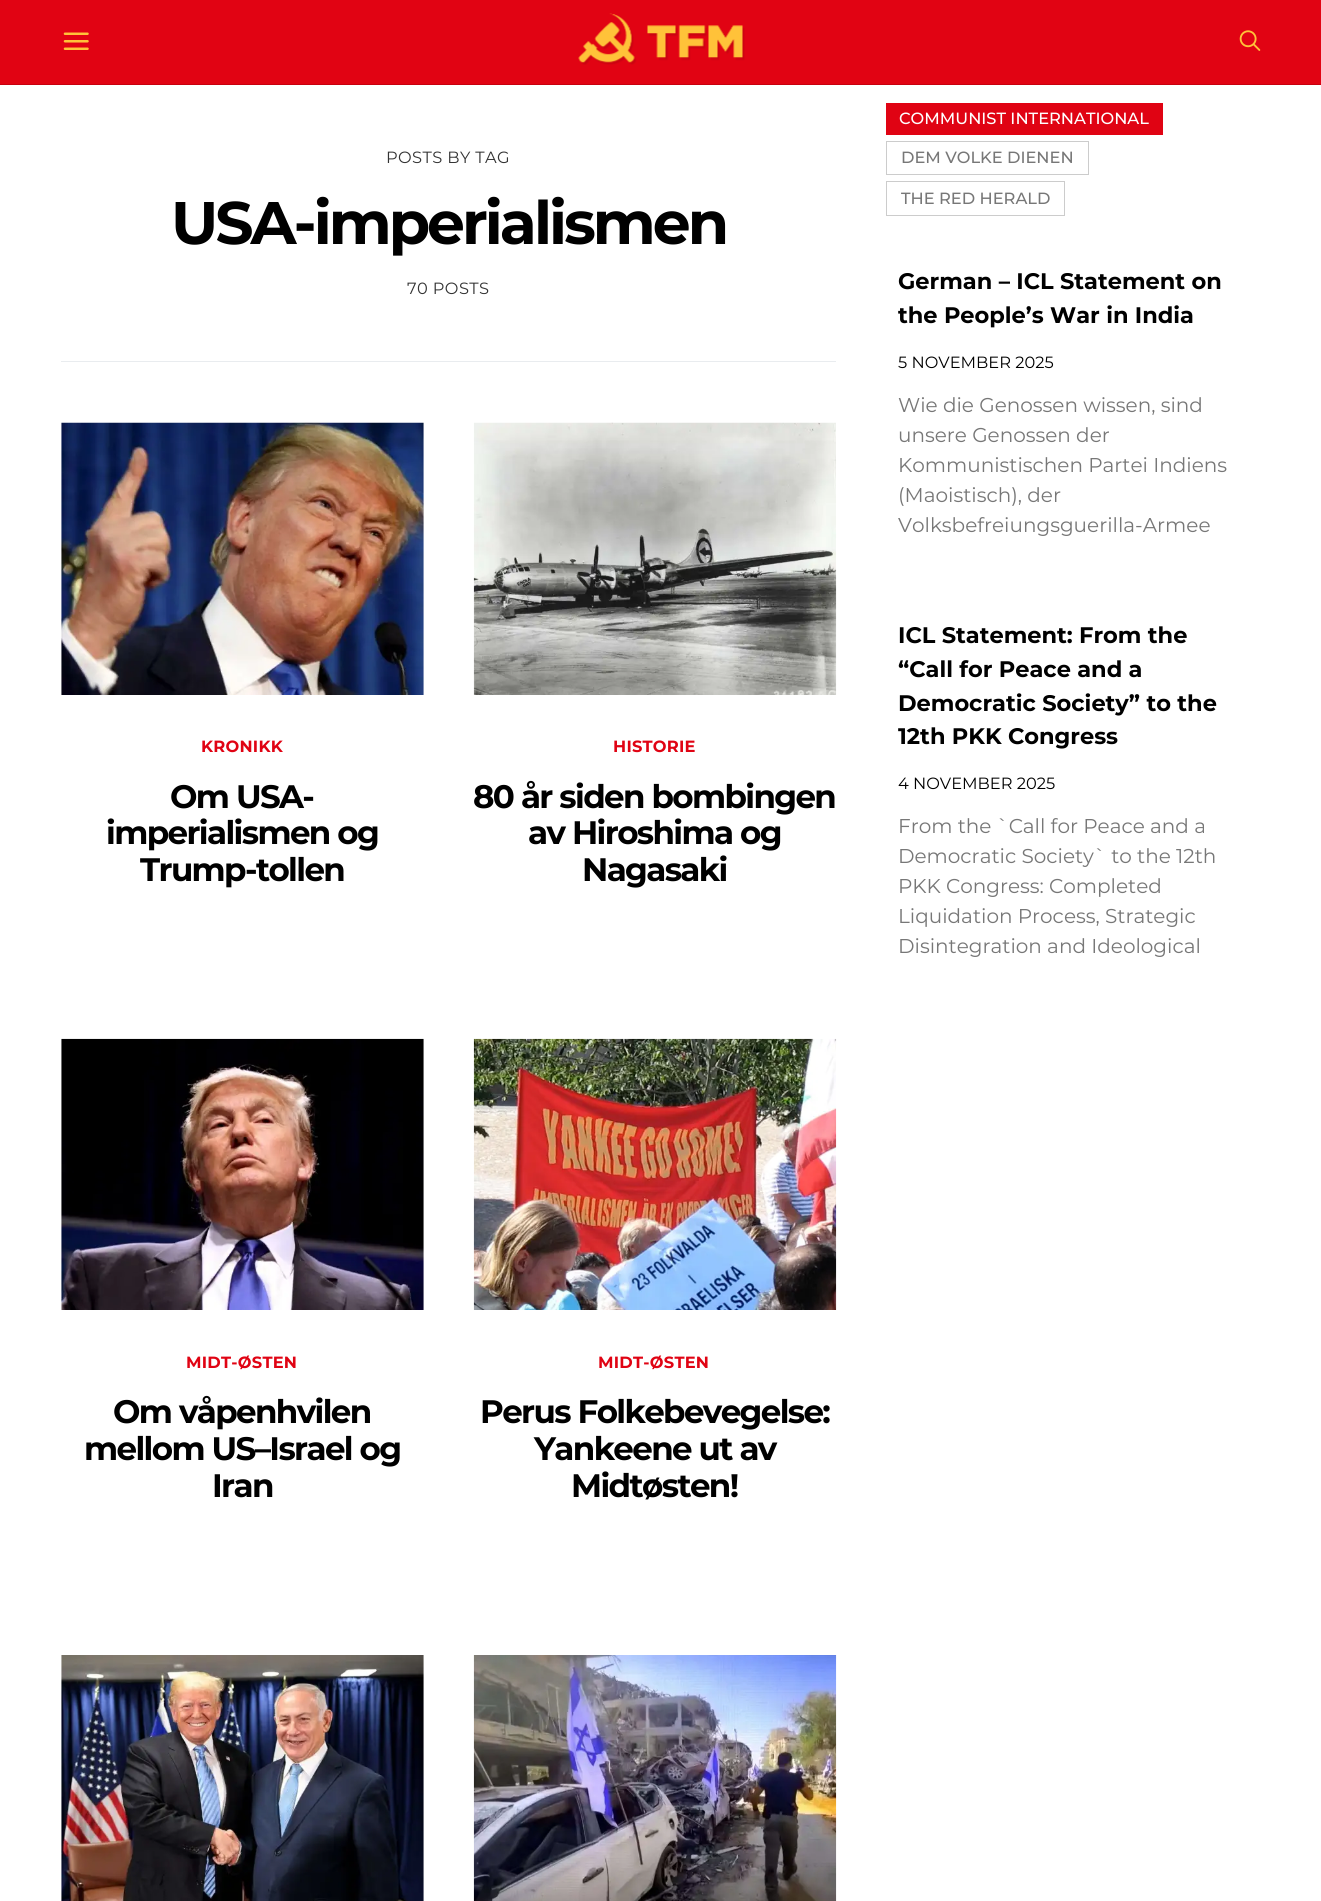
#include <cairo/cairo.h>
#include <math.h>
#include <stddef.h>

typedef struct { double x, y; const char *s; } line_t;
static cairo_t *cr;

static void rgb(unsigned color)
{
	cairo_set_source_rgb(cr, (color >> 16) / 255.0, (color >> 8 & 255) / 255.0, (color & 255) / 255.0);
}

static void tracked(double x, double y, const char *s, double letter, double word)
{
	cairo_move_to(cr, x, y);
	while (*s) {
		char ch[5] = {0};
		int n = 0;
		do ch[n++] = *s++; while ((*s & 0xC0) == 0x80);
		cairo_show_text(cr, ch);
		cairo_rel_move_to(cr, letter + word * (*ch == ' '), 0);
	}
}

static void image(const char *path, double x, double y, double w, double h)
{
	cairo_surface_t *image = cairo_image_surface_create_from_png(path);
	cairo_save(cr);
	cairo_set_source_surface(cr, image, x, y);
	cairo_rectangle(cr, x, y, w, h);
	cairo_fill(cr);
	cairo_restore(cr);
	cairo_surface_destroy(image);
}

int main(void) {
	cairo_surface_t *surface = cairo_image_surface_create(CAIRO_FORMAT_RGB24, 1321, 1901);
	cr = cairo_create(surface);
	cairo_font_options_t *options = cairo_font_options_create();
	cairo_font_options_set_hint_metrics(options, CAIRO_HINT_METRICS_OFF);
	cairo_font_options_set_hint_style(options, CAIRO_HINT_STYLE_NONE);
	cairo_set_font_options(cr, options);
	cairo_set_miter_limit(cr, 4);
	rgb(0xffffff);
	cairo_paint(cr);
	rgb(0xe10313);
	cairo_rectangle(cr, 0, 0, 1321, 84);
	cairo_fill(cr);
	rgb(0xc7000e);
	cairo_rectangle(cr, 0, 84, 1321, 1);
	cairo_fill(cr);
	image("img/1.png", 63, 32, 26, 18);
	image("img/2.png", 578, 13, 167, 52);
	image("img/3.png", 1239, 30, 22, 21);
	rgb(0xe9ecef);
	cairo_rectangle(cr, 61, 361, 775, 1);
	cairo_fill(cr);
	image("img/4.png", 61, 422, 363, 273);
	image("img/5.png", 473, 422, 364, 273);
	image("img/6.png", 61, 1038, 363, 272);
	image("img/7.png", 473, 1038, 364, 272);
	image("img/8.png", 61, 1655, 363, 246);
	image("img/9.png", 473, 1655, 364, 246);
	rgb(0xe00313);
	cairo_rectangle(cr, 886, 103, 277, 32);
	cairo_fill(cr);
	cairo_rectangle(cr, 886.5, 141.5, 202, 33);
	rgb(0xcccccc);
	cairo_set_line_width(cr, 1);
	cairo_stroke(cr);
	cairo_rectangle(cr, 886.5, 181.5, 178, 34);
	cairo_stroke(cr);
	cairo_select_font_face(cr, "Montserrat", CAIRO_FONT_SLANT_NORMAL, CAIRO_FONT_WEIGHT_NORMAL);
	cairo_set_font_size(cr, 16.25);
	rgb(0x333333);
	tracked(386, 163, "POSTS BY TAG", 0.4, 0);
	cairo_select_font_face(cr, "Montserrat", CAIRO_FONT_SLANT_NORMAL, CAIRO_FONT_WEIGHT_BOLD);
	cairo_set_font_size(cr, 60);
	rgb(0x000000);
	tracked(171, 244, "USA-imperialismen", -3, 0);
	cairo_select_font_face(cr, "Montserrat", CAIRO_FONT_SLANT_NORMAL, CAIRO_FONT_WEIGHT_NORMAL);
	cairo_set_font_size(cr, 16.25);
	rgb(0x333333);
	tracked(407, 294, "70 POSTS", 0.4, 0);
	cairo_select_font_face(cr, "Montserrat", CAIRO_FONT_SLANT_NORMAL, CAIRO_FONT_WEIGHT_BOLD);
	rgb(0xe00313);
	tracked(201, 752, "KRONIKK", 0.25, 0);
	cairo_set_font_size(cr, 32.5);
	rgb(0x000000);
	{
		static const line_t items[] = {
			{170, 808, "Om USA-"},
			{106, 844, "imperialismen og"},
			{140, 881, "Trump-tollen"},
		};
		for (size_t i = 0; i < sizeof items / sizeof *items; i++) {
			tracked(items[i].x, items[i].y, items[i].s, -1.6, 0);
		}
	}
	cairo_set_font_size(cr, 16.25);
	rgb(0xe00313);
	tracked(613, 752, "HISTORIE", 0.25, 0);
	cairo_set_font_size(cr, 32.5);
	rgb(0x000000);
	{
		static const line_t items[] = {
			{473, 808, "80 år siden bombingen"},
			{528, 844, "av Hiroshima og"},
			{582, 881, "Nagasaki"},
		};
		for (size_t i = 0; i < sizeof items / sizeof *items; i++) {
			tracked(items[i].x, items[i].y, items[i].s, -1.6, 0);
		}
	}
	cairo_set_font_size(cr, 16.25);
	rgb(0xe00313);
	tracked(186, 1368, "MIDT-ØSTEN", 0.25, 0);
	cairo_set_font_size(cr, 32.5);
	rgb(0x000000);
	{
		static const line_t items[] = {
			{113, 1423, "Om våpenhvilen"},
			{84, 1460, "mellom US–Israel og"},
			{212, 1497, "Iran"},
		};
		for (size_t i = 0; i < sizeof items / sizeof *items; i++) {
			tracked(items[i].x, items[i].y, items[i].s, -1.6, 0);
		}
	}
	cairo_set_font_size(cr, 16.25);
	rgb(0xe00313);
	tracked(598, 1368, "MIDT-ØSTEN", 0.25, 0);
	cairo_set_font_size(cr, 32.5);
	rgb(0x000000);
	{
		static const line_t items[] = {
			{480, 1423, "Perus Folkebevegelse:"},
			{534, 1460, "Yankeene ut av"},
			{571, 1497, "Midtøsten!"},
		};
		for (size_t i = 0; i < sizeof items / sizeof *items; i++) {
			tracked(items[i].x, items[i].y, items[i].s, -1.6, 0);
		}
	}
	cairo_select_font_face(cr, "Montserrat Medium", CAIRO_FONT_SLANT_NORMAL, CAIRO_FONT_WEIGHT_NORMAL);
	cairo_set_font_size(cr, 16.25);
	rgb(0xffffff);
	cairo_move_to(cr, 899, 124);
	cairo_show_text(cr, "COMMUNIST INTERNATIONAL");
	rgb(0x777777);
	cairo_move_to(cr, 901, 163);
	cairo_show_text(cr, "DEM VOLKE DIENEN");
	cairo_move_to(cr, 901, 204);
	cairo_show_text(cr, "THE RED HERALD");
	cairo_select_font_face(cr, "Montserrat", CAIRO_FONT_SLANT_NORMAL, CAIRO_FONT_WEIGHT_BOLD);
	cairo_set_font_size(cr, 22.5);
	rgb(0x000000);
	cairo_move_to(cr, 898, 289);
	cairo_show_text(cr, "German – ICL Statement on");
	cairo_move_to(cr, 898, 323);
	cairo_show_text(cr, "the People’s War in India");
	cairo_select_font_face(cr, "Montserrat", CAIRO_FONT_SLANT_NORMAL, CAIRO_FONT_WEIGHT_NORMAL);
	cairo_set_font_size(cr, 16.25);
	cairo_move_to(cr, 898, 368);
	cairo_show_text(cr, "5 NOVEMBER 2025");
	cairo_set_font_size(cr, 20);
	rgb(0x777777);
	{
		static const line_t items[] = {
			{898, 412, "Wie die Genossen wissen, sind"},
			{898, 442, "unsere Genossen der"},
			{898, 472, "Kommunistischen Partei Indiens"},
			{898, 502, "(Maoistisch), der"},
			{898, 532, "Volksbefreiungsguerilla-Armee"},
		};
		for (size_t i = 0; i < sizeof items / sizeof *items; i++) {
			cairo_move_to(cr, items[i].x, items[i].y);
			cairo_show_text(cr, items[i].s);
		}
	}
	cairo_select_font_face(cr, "Montserrat", CAIRO_FONT_SLANT_NORMAL, CAIRO_FONT_WEIGHT_BOLD);
	cairo_set_font_size(cr, 22.5);
	rgb(0x000000);
	{
		static const line_t items[] = {
			{898, 643, "ICL Statement: From the"},
			{898, 677, "“Call for Peace and a"},
			{898, 711, "Democratic Society” to the"},
			{898, 744, "12th PKK Congress"},
		};
		for (size_t i = 0; i < sizeof items / sizeof *items; i++) {
			cairo_move_to(cr, items[i].x, items[i].y);
			cairo_show_text(cr, items[i].s);
		}
	}
	cairo_select_font_face(cr, "Montserrat", CAIRO_FONT_SLANT_NORMAL, CAIRO_FONT_WEIGHT_NORMAL);
	cairo_set_font_size(cr, 16.25);
	cairo_move_to(cr, 898, 789);
	cairo_show_text(cr, "4 NOVEMBER 2025");
	cairo_set_font_size(cr, 20);
	rgb(0x777777);
	{
		static const line_t items[] = {
			{898, 833, "From the `Call for Peace and a"},
			{898, 863, "Democratic Society` to the 12th"},
			{898, 893, "PKK Congress: Completed"},
			{898, 923, "Liquidation Process, Strategic"},
			{898, 953, "Disintegration and Ideological"},
		};
		for (size_t i = 0; i < sizeof items / sizeof *items; i++) {
			cairo_move_to(cr, items[i].x, items[i].y);
			cairo_show_text(cr, items[i].s);
		}
	}
	cairo_surface_write_to_png(surface, "page.png");
	cairo_font_options_destroy(options);
	cairo_destroy(cr);
	cairo_surface_destroy(surface);
	return 0;
}
